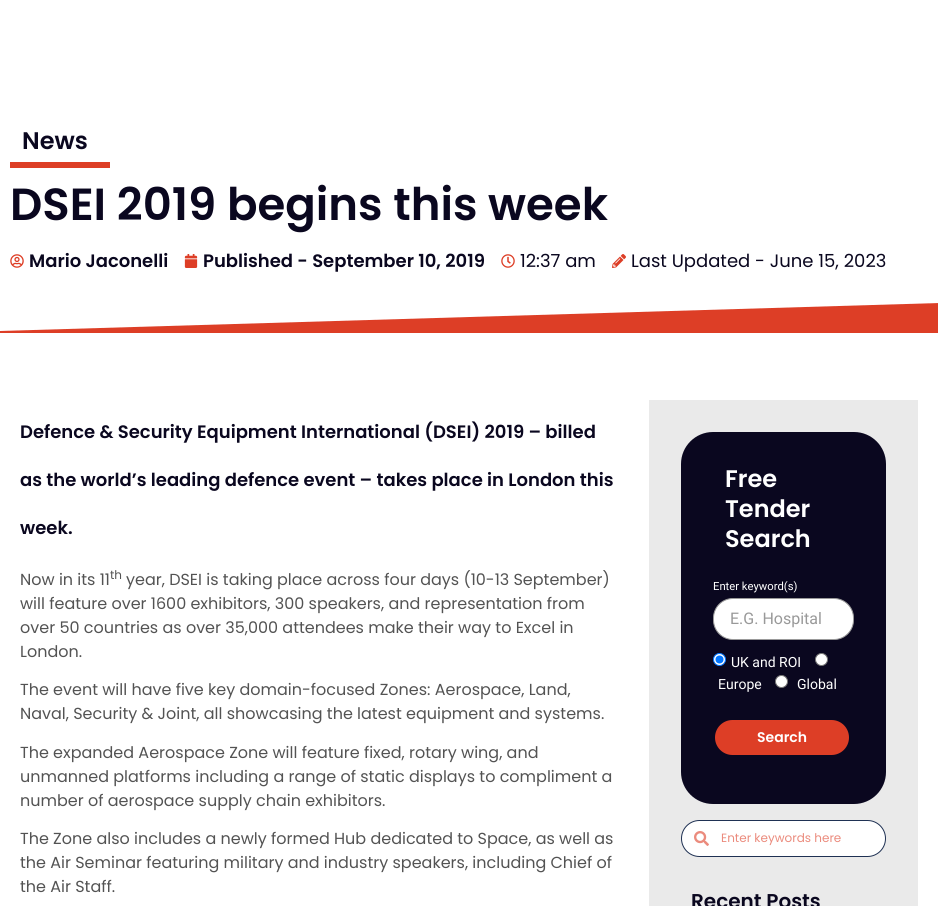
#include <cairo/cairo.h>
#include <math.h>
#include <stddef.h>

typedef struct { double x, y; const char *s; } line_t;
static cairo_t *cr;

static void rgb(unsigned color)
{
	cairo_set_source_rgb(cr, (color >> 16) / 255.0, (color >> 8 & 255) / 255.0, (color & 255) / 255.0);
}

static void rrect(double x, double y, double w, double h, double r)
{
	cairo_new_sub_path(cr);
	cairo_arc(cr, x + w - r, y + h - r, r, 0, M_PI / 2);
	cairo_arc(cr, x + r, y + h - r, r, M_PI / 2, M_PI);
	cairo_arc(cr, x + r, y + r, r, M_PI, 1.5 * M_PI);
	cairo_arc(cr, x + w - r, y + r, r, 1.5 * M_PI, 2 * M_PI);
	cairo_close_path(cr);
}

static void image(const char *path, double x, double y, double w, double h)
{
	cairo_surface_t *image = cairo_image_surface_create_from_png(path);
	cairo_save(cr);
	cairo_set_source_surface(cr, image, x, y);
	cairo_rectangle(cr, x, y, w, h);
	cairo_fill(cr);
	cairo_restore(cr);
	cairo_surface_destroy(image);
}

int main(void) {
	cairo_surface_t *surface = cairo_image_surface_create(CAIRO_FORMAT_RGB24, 938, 906);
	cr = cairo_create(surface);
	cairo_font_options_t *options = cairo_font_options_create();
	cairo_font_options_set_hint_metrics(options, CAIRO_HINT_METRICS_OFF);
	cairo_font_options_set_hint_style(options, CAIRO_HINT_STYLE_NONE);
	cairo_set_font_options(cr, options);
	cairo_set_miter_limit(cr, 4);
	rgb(0xffffff);
	cairo_paint(cr);
	rgb(0xdd3e26);
	cairo_rectangle(cr, 10, 162, 100, 6);
	cairo_fill(cr);
	image("img/1.png", 10, 254, 14, 14);
	image("img/2.png", 184, 254, 14, 14);
	image("img/3.png", 501, 254, 14, 14);
	image("img/4.png", 612, 254, 14, 14);
	cairo_new_path(cr);
	cairo_move_to(cr, -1, 331);
	cairo_line_to(cr, -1, 333);
	cairo_line_to(cr, 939, 333);
	cairo_line_to(cr, 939, 303);
	cairo_close_path(cr);
	cairo_fill(cr);
	rgb(0xeaeaea);
	cairo_rectangle(cr, 649, 400, 269, 506);
	cairo_fill(cr);
	rgb(0x0a071f);
	rrect(681, 432, 205, 372, 32);
	cairo_fill(cr);
	rgb(0xffffff);
	rrect(713.5, 598.5, 140, 41, 19.5);
	cairo_fill_preserve(cr);
	rgb(0x999999);
	cairo_set_line_width(cr, 1);
	cairo_stroke(cr);
	rgb(0xffffff);
	cairo_arc(cr, 719.5, 659.5, 6, 0, 2 * M_PI);
	cairo_fill_preserve(cr);
	rgb(0x0075ff);
	cairo_stroke(cr);
	cairo_arc(cr, 719.5, 659.5, 4, 0, 2 * M_PI);
	cairo_fill(cr);
	rgb(0xffffff);
	cairo_arc(cr, 821.5, 659.5, 6, 0, 2 * M_PI);
	cairo_fill_preserve(cr);
	rgb(0x767676);
	cairo_stroke(cr);
	rgb(0xffffff);
	cairo_arc(cr, 781.5, 681.5, 6, 0, 2 * M_PI);
	cairo_fill_preserve(cr);
	rgb(0x767676);
	cairo_stroke(cr);
	rgb(0xdd3e26);
	rrect(714, 719, 136, 37, 18.5);
	cairo_fill_preserve(cr);
	rgb(0x0a071f);
	cairo_set_line_width(cr, 2);
	cairo_stroke(cr);
	rgb(0xffffff);
	rrect(681.5, 820.5, 204, 36, 18);
	cairo_fill_preserve(cr);
	rgb(0x1f3153);
	cairo_set_line_width(cr, 1);
	cairo_stroke(cr);
	image("img/5.png", 694, 831, 15, 15);
	cairo_select_font_face(cr, "Poppins SemiBold", CAIRO_FONT_SLANT_NORMAL, CAIRO_FONT_WEIGHT_NORMAL);
	cairo_set_font_size(cr, 24);
	rgb(0x0a071f);
	cairo_move_to(cr, 22, 149);
	cairo_show_text(cr, "News");
	cairo_set_font_size(cr, 45);
	cairo_move_to(cr, 10, 220);
	cairo_show_text(cr, "DSEI 2019 begins this week");
	cairo_set_font_size(cr, 18);
	cairo_move_to(cr, 29, 267);
	cairo_show_text(cr, "Mario Jaconelli");
	cairo_move_to(cr, 203, 267);
	cairo_show_text(cr, "Published - September 10, 2019");
	cairo_select_font_face(cr, "Poppins", CAIRO_FONT_SLANT_NORMAL, CAIRO_FONT_WEIGHT_NORMAL);
	cairo_move_to(cr, 520, 267);
	cairo_show_text(cr, "12:37 am");
	cairo_move_to(cr, 631, 267);
	cairo_show_text(cr, "Last Updated - June 15, 2023");
	cairo_select_font_face(cr, "Poppins SemiBold", CAIRO_FONT_SLANT_NORMAL, CAIRO_FONT_WEIGHT_NORMAL);
	{
		static const line_t items[] = {
			{20, 438, "Defence & Security Equipment International (DSEI) 2019 – billed"},
			{20, 486, "as the world’s leading defence event – takes place in London this"},
			{20, 534, "week."},
		};
		for (size_t i = 0; i < sizeof items / sizeof *items; i++) {
			cairo_move_to(cr, items[i].x, items[i].y);
			cairo_show_text(cr, items[i].s);
		}
	}
	cairo_select_font_face(cr, "Poppins", CAIRO_FONT_SLANT_NORMAL, CAIRO_FONT_WEIGHT_NORMAL);
	cairo_set_font_size(cr, 16);
	rgb(0x535353);
	cairo_move_to(cr, 20, 585);
	cairo_show_text(cr, "Now in its 11");
	cairo_set_font_size(cr, 12);
	cairo_move_to(cr, 110, 579);
	cairo_show_text(cr, "th");
	cairo_set_font_size(cr, 16);
	{
		static const line_t items[] = {
			{126, 585, "year, DSEI is taking place across four days (10-13 September)"},
			{20, 609, "will feature over 1600 exhibitors, 300 speakers, and representation from"},
			{20, 633, "over 50 countries as over 35,000 attendees make their way to Excel in"},
			{20, 657, "London."},
			{20, 695, "The event will have five key domain-focused Zones: Aerospace, Land,"},
			{20, 719, "Naval, Security & Joint, all showcasing the latest equipment and systems."},
			{20, 758, "The expanded Aerospace Zone will feature fixed, rotary wing, and"},
			{20, 782, "unmanned platforms including a range of static displays to compliment a"},
			{20, 806, "number of aerospace supply chain exhibitors."},
			{20, 844, "The Zone also includes a newly formed Hub dedicated to Space, as well as"},
			{20, 868, "the Air Seminar featuring military and industry speakers, including Chief of"},
			{20, 892, "the Air Staff."},
		};
		for (size_t i = 0; i < sizeof items / sizeof *items; i++) {
			cairo_move_to(cr, items[i].x, items[i].y);
			cairo_show_text(cr, items[i].s);
		}
	}
	cairo_select_font_face(cr, "Poppins SemiBold", CAIRO_FONT_SLANT_NORMAL, CAIRO_FONT_WEIGHT_NORMAL);
	cairo_set_font_size(cr, 24);
	rgb(0xffffff);
	{
		static const line_t items[] = {
			{725, 487, "Free"},
			{725, 517, "Tender"},
			{725, 547, "Search"},
		};
		for (size_t i = 0; i < sizeof items / sizeof *items; i++) {
			cairo_move_to(cr, items[i].x, items[i].y);
			cairo_show_text(cr, items[i].s);
		}
	}
	cairo_select_font_face(cr, "Roboto", CAIRO_FONT_SLANT_NORMAL, CAIRO_FONT_WEIGHT_NORMAL);
	cairo_set_font_size(cr, 11.25);
	cairo_move_to(cr, 713, 590);
	cairo_show_text(cr, "Enter keyword(s)");
	cairo_set_font_size(cr, 16);
	rgb(0x999999);
	cairo_move_to(cr, 730, 624);
	cairo_show_text(cr, "E.G. Hospital");
	cairo_set_font_size(cr, 14);
	rgb(0xffffff);
	{
		static const line_t items[] = {
			{731, 667, "UK and ROI"},
			{718, 689, "Europe"},
			{797, 689, "Global"},
		};
		for (size_t i = 0; i < sizeof items / sizeof *items; i++) {
			cairo_move_to(cr, items[i].x, items[i].y);
			cairo_show_text(cr, items[i].s);
		}
	}
	cairo_select_font_face(cr, "Poppins SemiBold", CAIRO_FONT_SLANT_NORMAL, CAIRO_FONT_WEIGHT_NORMAL);
	cairo_move_to(cr, 757, 742);
	cairo_show_text(cr, "Search");
	cairo_select_font_face(cr, "Poppins", CAIRO_FONT_SLANT_NORMAL, CAIRO_FONT_WEIGHT_NORMAL);
	cairo_set_font_size(cr, 12);
	rgb(0xeb8b7d);
	cairo_move_to(cr, 721, 842);
	cairo_show_text(cr, "Enter keywords here");
	cairo_select_font_face(cr, "Poppins SemiBold", CAIRO_FONT_SLANT_NORMAL, CAIRO_FONT_WEIGHT_NORMAL);
	cairo_set_font_size(cr, 20);
	rgb(0x0a071f);
	cairo_move_to(cr, 691, 908);
	cairo_show_text(cr, "Recent Posts");
	cairo_surface_write_to_png(surface, "page.png");
	cairo_font_options_destroy(options);
	cairo_destroy(cr);
	cairo_surface_destroy(surface);
	return 0;
}
